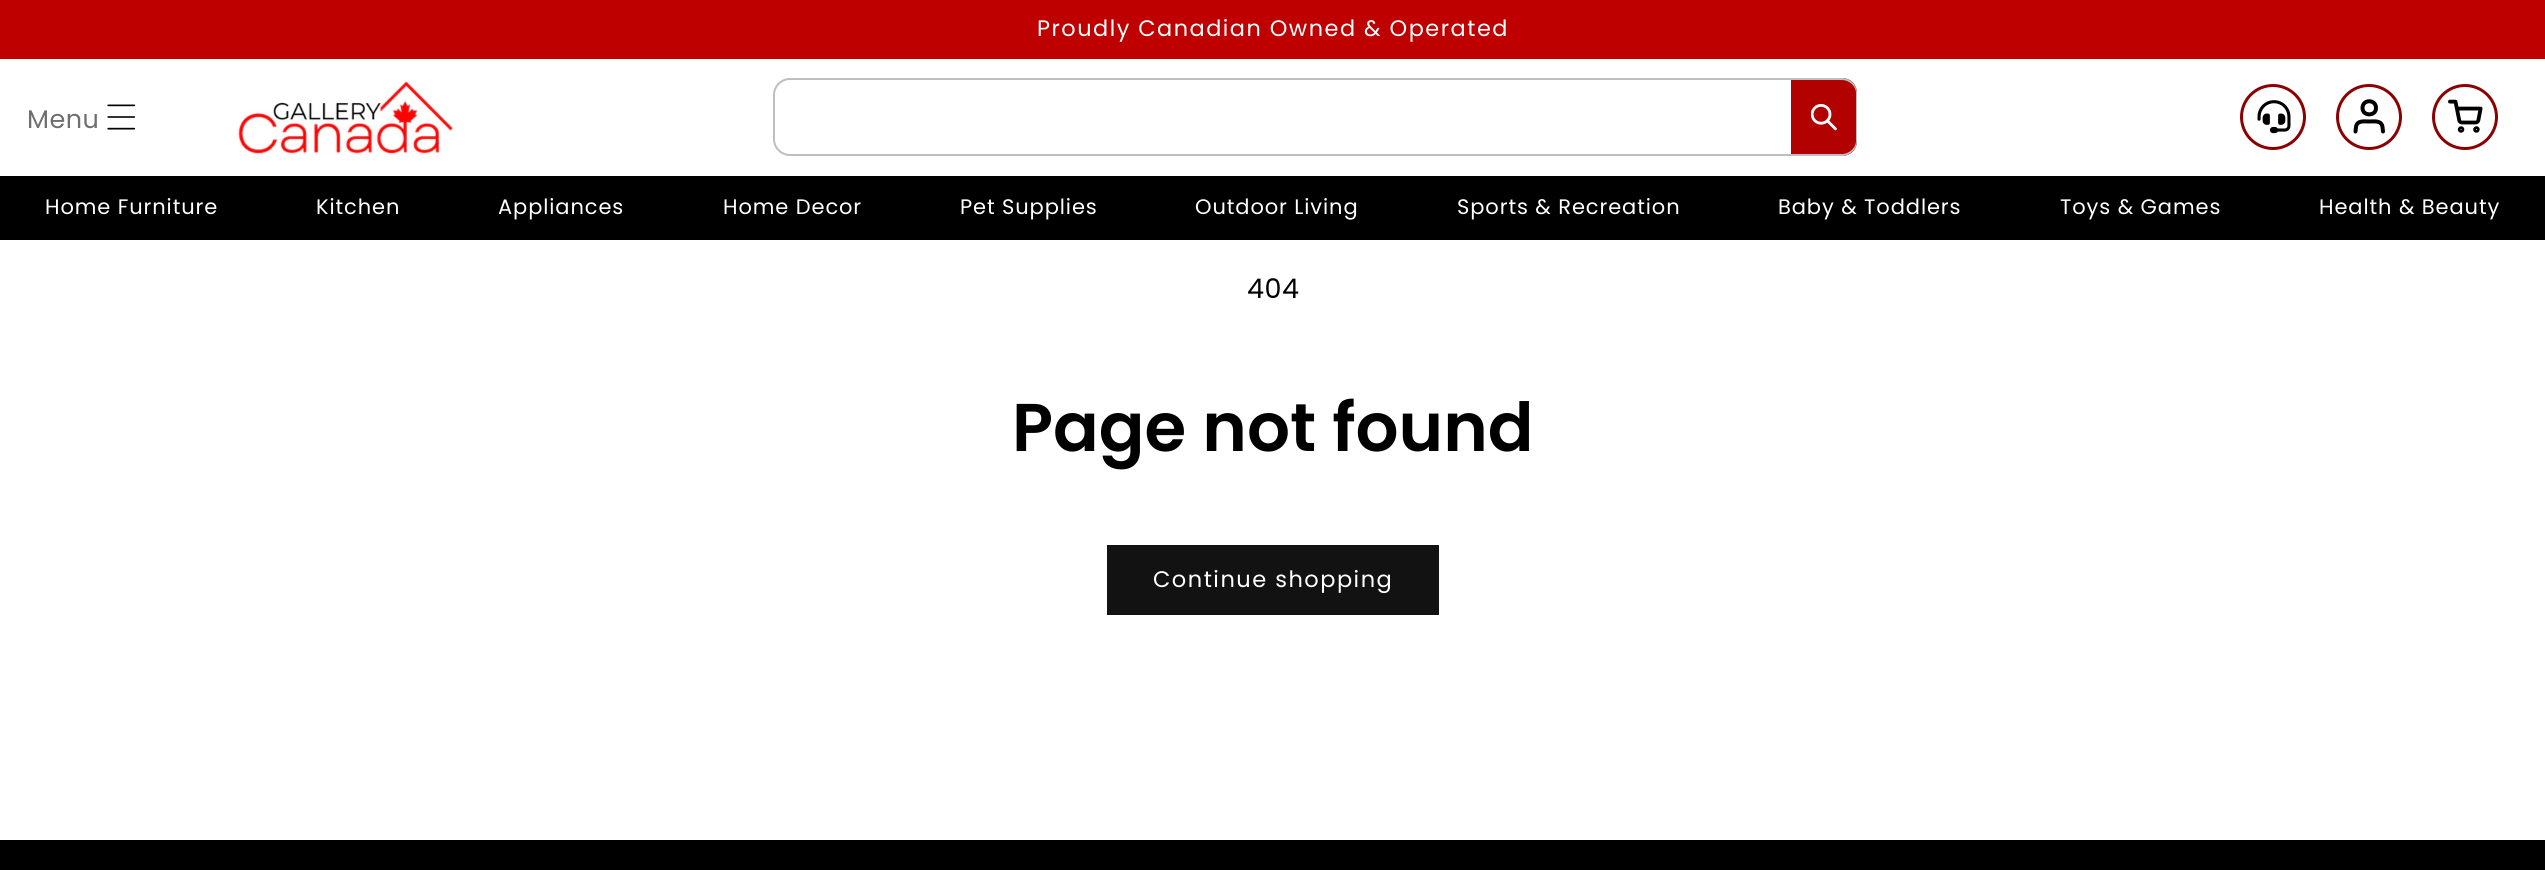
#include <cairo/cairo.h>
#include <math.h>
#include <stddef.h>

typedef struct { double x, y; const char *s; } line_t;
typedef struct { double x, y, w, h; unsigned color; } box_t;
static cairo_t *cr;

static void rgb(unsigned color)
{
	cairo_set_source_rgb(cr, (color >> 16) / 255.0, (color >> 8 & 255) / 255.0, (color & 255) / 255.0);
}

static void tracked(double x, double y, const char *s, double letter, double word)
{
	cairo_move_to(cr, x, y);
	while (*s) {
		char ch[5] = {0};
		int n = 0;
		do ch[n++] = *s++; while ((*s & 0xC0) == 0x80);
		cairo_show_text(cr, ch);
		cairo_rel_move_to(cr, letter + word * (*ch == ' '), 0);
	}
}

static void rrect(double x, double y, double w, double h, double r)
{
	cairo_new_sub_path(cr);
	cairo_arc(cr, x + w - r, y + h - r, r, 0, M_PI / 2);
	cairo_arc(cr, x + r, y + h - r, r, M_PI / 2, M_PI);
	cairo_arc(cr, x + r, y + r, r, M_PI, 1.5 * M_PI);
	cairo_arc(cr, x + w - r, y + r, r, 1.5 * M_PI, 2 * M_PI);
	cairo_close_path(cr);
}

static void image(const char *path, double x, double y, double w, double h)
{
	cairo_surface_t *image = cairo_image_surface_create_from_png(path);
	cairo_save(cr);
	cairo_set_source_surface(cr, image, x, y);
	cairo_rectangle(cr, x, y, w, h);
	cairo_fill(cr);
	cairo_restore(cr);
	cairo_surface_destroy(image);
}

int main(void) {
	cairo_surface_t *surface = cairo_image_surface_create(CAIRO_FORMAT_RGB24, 2545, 870);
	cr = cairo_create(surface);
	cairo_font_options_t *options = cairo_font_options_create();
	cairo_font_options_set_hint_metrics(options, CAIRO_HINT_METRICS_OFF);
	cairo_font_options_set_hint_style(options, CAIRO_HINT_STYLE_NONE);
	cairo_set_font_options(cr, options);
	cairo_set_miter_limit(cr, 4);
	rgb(0xffffff);
	cairo_paint(cr);
	rgb(0xbe0000);
	cairo_rectangle(cr, 0, 0, 2545, 59);
	cairo_fill(cr);
	image("img/1.png", 107, 104, 29, 26);
	image("img/2.png", 234, 80, 221, 75);
	rrect(774, 79, 1082, 76, 16);
	rgb(0xbebebe);
	cairo_stroke(cr);
	rgb(0xb20101);
	cairo_new_path(cr);
	cairo_move_to(cr, 1791, 78);
	cairo_line_to(cr, 1842, 78);
	cairo_curve_to(cr, 1850.5, 78, 1857, 84.5, 1857, 93);
	cairo_line_to(cr, 1857, 141);
	cairo_curve_to(cr, 1857, 149.5, 1850.5, 156, 1842, 156);
	cairo_line_to(cr, 1791, 156);
	cairo_close_path(cr);
	cairo_fill(cr);
	rgb(0xbebebe);
	cairo_set_fill_rule(cr, CAIRO_FILL_RULE_EVEN_ODD);
	cairo_new_path(cr);
	cairo_move_to(cr, 1791, 78);
	cairo_line_to(cr, 1842, 78);
	cairo_curve_to(cr, 1850, 78, 1857, 85, 1857, 93);
	cairo_line_to(cr, 1857, 141);
	cairo_curve_to(cr, 1857, 149, 1850, 156, 1842, 156);
	cairo_line_to(cr, 1791, 156);
	cairo_close_path(cr);
	cairo_move_to(cr, 1791, 80);
	cairo_line_to(cr, 1842, 80);
	cairo_curve_to(cr, 1849, 80, 1856, 86, 1856, 93);
	cairo_line_to(cr, 1856, 141);
	cairo_curve_to(cr, 1856, 148, 1849, 154, 1842, 154);
	cairo_line_to(cr, 1791, 154);
	cairo_close_path(cr);
	cairo_fill(cr);
	image("img/3.png", 1811, 104, 26, 27);
	cairo_arc(cr, 2273, 117, 31.5, 0, 2 * M_PI);
	rgb(0x8b0000);
	cairo_set_line_width(cr, 3);
	cairo_stroke(cr);
	image("img/4.png", 2257, 100, 34, 34);
	cairo_arc(cr, 2369, 117, 31.5, 0, 2 * M_PI);
	cairo_stroke(cr);
	cairo_new_path(cr);
	cairo_move_to(cr, 2383, 131.5);
	cairo_line_to(cr, 2382.5, 127);
	cairo_curve_to(cr, 2381.5, 120, 2374, 121.5, 2369, 121.5);
	cairo_curve_to(cr, 2364.5, 121.5, 2357, 120, 2356, 127);
	cairo_line_to(cr, 2355.5, 131.5);
	cairo_move_to(cr, 2376, 108);
	cairo_curve_to(cr, 2376, 116.5, 2362.5, 116.5, 2362.5, 108);
	cairo_curve_to(cr, 2362.5, 99, 2376, 99, 2376, 108);
	cairo_close_path(cr);
	rgb(0x000000);
	cairo_set_line_width(cr, 4);
	cairo_set_line_cap(cr, CAIRO_LINE_CAP_ROUND);
	cairo_set_line_join(cr, CAIRO_LINE_JOIN_ROUND);
	cairo_stroke(cr);
	cairo_arc(cr, 2465, 117, 31.5, 0, 2 * M_PI);
	rgb(0x8b0000);
	cairo_set_line_width(cr, 3);
	cairo_set_line_cap(cr, CAIRO_LINE_CAP_BUTT);
	cairo_set_line_join(cr, CAIRO_LINE_JOIN_MITER);
	cairo_stroke(cr);
	image("img/5.png", 2448, 99, 35, 34);
	{
		static const box_t items[] = {
			{0, 176, 2545, 64, 0x000000},
			{1107, 545, 332, 70, 0x121212},
			{0, 840, 2545, 30, 0x000000},
		};
		for (size_t i = 0; i < sizeof items / sizeof *items; i++) {
			rgb(items[i].color);
			cairo_rectangle(cr, items[i].x, items[i].y, items[i].w, items[i].h);
			cairo_fill(cr);
		}
	}
	cairo_select_font_face(cr, "Poppins", CAIRO_FONT_SLANT_NORMAL, CAIRO_FONT_WEIGHT_NORMAL);
	cairo_set_font_size(cr, 22.4);
	rgb(0xffffff);
	tracked(1037, 36, "Proudly Canadian Owned & Operated", 1.5, 0);
	cairo_set_font_size(cr, 25.5);
	rgb(0x706e6e);
	tracked(27, 128, "Menu", 0.5, 0);
	cairo_set_font_size(cr, 21);
	rgb(0xffffff);
	{
		static const line_t items[] = {
			{45, 214, "Home Furniture"},
			{316, 214, "Kitchen"},
			{498, 214, "Appliances"},
			{723, 214, "Home Decor"},
			{960, 214, "Pet Supplies"},
			{1195, 214, "Outdoor Living"},
			{1457, 214, "Sports & Recreation"},
			{1778, 214, "Baby & Toddlers"},
			{2060, 214, "Toys & Games"},
			{2319, 214, "Health & Beauty"},
		};
		for (size_t i = 0; i < sizeof items / sizeof *items; i++) {
			tracked(items[i].x, items[i].y, items[i].s, 0.9, 0);
		}
	}
	cairo_set_font_size(cr, 27);
	rgb(0x000000);
	tracked(1247, 298, "404", 0.5, 0);
	cairo_select_font_face(cr, "Poppins SemiBold", CAIRO_FONT_SLANT_NORMAL, CAIRO_FONT_WEIGHT_NORMAL);
	cairo_set_font_size(cr, 67.5);
	cairo_move_to(cr, 1012, 451);
	cairo_show_text(cr, "Page not found");
	cairo_select_font_face(cr, "Poppins", CAIRO_FONT_SLANT_NORMAL, CAIRO_FONT_WEIGHT_NORMAL);
	cairo_set_font_size(cr, 22.5);
	rgb(0xffffff);
	tracked(1153, 587, "Continue shopping", 1.5, 0);
	cairo_surface_write_to_png(surface, "page.png");
	cairo_font_options_destroy(options);
	cairo_destroy(cr);
	cairo_surface_destroy(surface);
	return 0;
}
